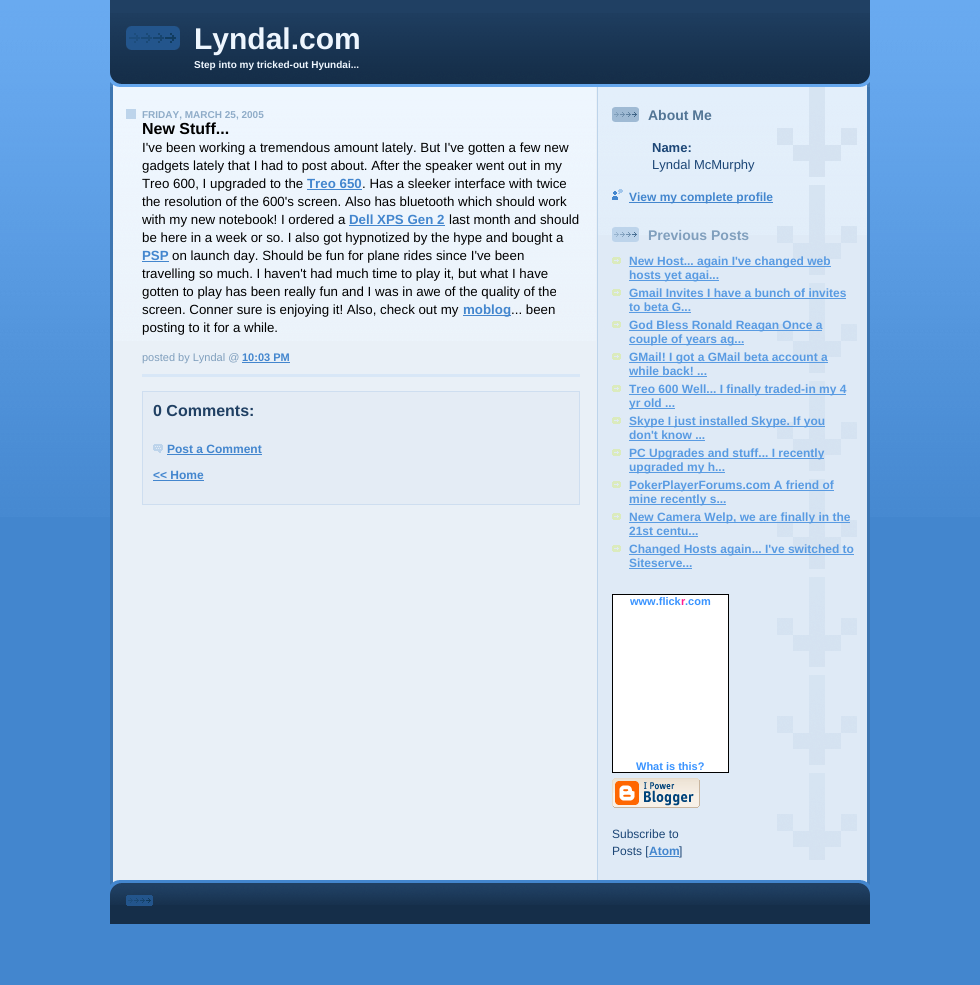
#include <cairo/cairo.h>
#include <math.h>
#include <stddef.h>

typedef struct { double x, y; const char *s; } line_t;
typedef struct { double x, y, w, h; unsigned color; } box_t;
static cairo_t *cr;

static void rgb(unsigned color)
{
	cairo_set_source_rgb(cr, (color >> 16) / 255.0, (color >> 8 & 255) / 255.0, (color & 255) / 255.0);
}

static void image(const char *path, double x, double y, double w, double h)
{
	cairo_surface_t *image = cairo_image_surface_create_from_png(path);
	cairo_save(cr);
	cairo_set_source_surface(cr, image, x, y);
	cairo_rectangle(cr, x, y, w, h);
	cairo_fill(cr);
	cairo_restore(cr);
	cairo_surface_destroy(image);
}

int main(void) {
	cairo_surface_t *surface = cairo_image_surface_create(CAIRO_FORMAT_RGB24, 980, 985);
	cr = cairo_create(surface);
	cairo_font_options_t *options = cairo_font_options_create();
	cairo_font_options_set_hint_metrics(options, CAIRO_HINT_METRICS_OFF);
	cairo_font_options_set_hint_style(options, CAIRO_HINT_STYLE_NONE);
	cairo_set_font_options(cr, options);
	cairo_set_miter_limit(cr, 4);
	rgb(0x4386ce);
	cairo_paint(cr);
	image("img/1.png", 0, 0, 980, 517);
	image("img/2.png", 110, 72, 760, 15);
	rgb(0x204063);
	cairo_rectangle(cr, 110, 0, 760, 13);
	cairo_fill(cr);
	image("img/3.png", 110, 13, 760, 59);
	image("img/4.png", 126, 26, 54, 24);
	image("img/5.png", 110, 87, 760, 793);
	image("img/6.png", 113, 87, 483, 254);
	{
		static const box_t items[] = {
			{126, 109, 10, 10, 0xbdd4eb},
			{142, 374, 438, 3, 0xd8e7f7},
			{307, 189, 55, 1, 0x4386ce},
			{349, 225, 96, 1, 0x4386ce},
			{142, 261, 27, 1, 0x4386ce},
			{463, 315, 48, 1, 0x4386ce},
			{242, 362, 48, 1, 0x4386ce},
		};
		for (size_t i = 0; i < sizeof items / sizeof *items; i++) {
			rgb(items[i].color);
			cairo_rectangle(cr, items[i].x, items[i].y, items[i].w, items[i].h);
			cairo_fill(cr);
		}
	}
	rgb(0xe4ecf5);
	cairo_rectangle(cr, 142.5, 391.5, 437, 113);
	cairo_fill_preserve(cr);
	rgb(0xcedef0);
	cairo_set_line_width(cr, 1);
	cairo_stroke(cr);
	image("img/7.png", 153, 444, 10, 9);
	rgb(0x4386ce);
	cairo_rectangle(cr, 167, 454, 95, 1);
	cairo_fill(cr);
	cairo_rectangle(cr, 153, 480, 51, 1);
	cairo_fill(cr);
	image("img/8.png", 598, 87, 269, 148);
	image("img/9.png", 777, 87, 80, 773);
	image("img/10.png", 612, 107, 27, 15);
	image("img/11.png", 612, 189, 11, 11);
	cairo_rectangle(cr, 629, 202, 144, 1);
	cairo_fill(cr);
	image("img/12.png", 612, 227, 27, 15);
	image("img/13.png", 612, 257, 9, 7);
	rgb(0x599be2);
	cairo_rectangle(cr, 629, 266, 202, 1);
	cairo_fill(cr);
	cairo_rectangle(cr, 629, 280, 90, 1);
	cairo_fill(cr);
	image("img/13.png", 612, 289, 9, 7);
	cairo_rectangle(cr, 629, 298, 217, 1);
	cairo_fill(cr);
	cairo_rectangle(cr, 629, 312, 62, 1);
	cairo_fill(cr);
	image("img/13.png", 612, 321, 9, 7);
	cairo_rectangle(cr, 629, 330, 193, 1);
	cairo_fill(cr);
	cairo_rectangle(cr, 629, 344, 115, 1);
	cairo_fill(cr);
	image("img/13.png", 612, 353, 9, 7);
	cairo_rectangle(cr, 629, 362, 199, 1);
	cairo_fill(cr);
	cairo_rectangle(cr, 629, 376, 78, 1);
	cairo_fill(cr);
	image("img/13.png", 612, 385, 9, 7);
	cairo_rectangle(cr, 629, 394, 217, 1);
	cairo_fill(cr);
	cairo_rectangle(cr, 629, 408, 46, 1);
	cairo_fill(cr);
	image("img/13.png", 612, 417, 9, 7);
	cairo_rectangle(cr, 629, 426, 196, 1);
	cairo_fill(cr);
	cairo_rectangle(cr, 629, 440, 76, 1);
	cairo_fill(cr);
	image("img/13.png", 612, 449, 9, 7);
	cairo_rectangle(cr, 629, 458, 195, 1);
	cairo_fill(cr);
	cairo_rectangle(cr, 629, 472, 96, 1);
	cairo_fill(cr);
	image("img/13.png", 612, 481, 9, 7);
	cairo_rectangle(cr, 629, 490, 205, 1);
	cairo_fill(cr);
	cairo_rectangle(cr, 629, 504, 97, 1);
	cairo_fill(cr);
	image("img/13.png", 612, 513, 9, 7);
	cairo_rectangle(cr, 629, 522, 221, 1);
	cairo_fill(cr);
	cairo_rectangle(cr, 629, 536, 69, 1);
	cairo_fill(cr);
	image("img/13.png", 612, 545, 9, 7);
	cairo_rectangle(cr, 629, 554, 225, 1);
	cairo_fill(cr);
	cairo_rectangle(cr, 629, 568, 63, 1);
	cairo_fill(cr);
	rgb(0xffffff);
	cairo_rectangle(cr, 612.5, 594.5, 116, 178);
	cairo_fill_preserve(cr);
	rgb(0x000000);
	cairo_stroke(cr);
	image("img/14.png", 612, 778, 88, 30);
	rgb(0x4386ce);
	cairo_rectangle(cr, 649, 856, 30, 1);
	cairo_fill(cr);
	image("img/15.png", 110, 880, 760, 15);
	rgb(0x152e49);
	cairo_rectangle(cr, 110, 905, 760, 19);
	cairo_fill(cr);
	image("img/16.png", 110, 895, 760, 10);
	image("img/17.png", 126, 895, 27, 11);
	cairo_select_font_face(cr, "Liberation Sans", CAIRO_FONT_SLANT_NORMAL, CAIRO_FONT_WEIGHT_BOLD);
	cairo_set_font_size(cr, 30);
	rgb(0xeef6fe);
	cairo_move_to(cr, 194, 49);
	cairo_show_text(cr, "Lyndal.com");
	cairo_set_font_size(cr, 10);
	cairo_move_to(cr, 194, 68);
	cairo_show_text(cr, "Step into my tricked-out Hyundai...");
	rgb(0x8facc8);
	cairo_move_to(cr, 142, 118);
	cairo_show_text(cr, "FRIDAY, MARCH 25, 2005");
	cairo_set_font_size(cr, 16);
	rgb(0x000000);
	cairo_move_to(cr, 142, 134);
	cairo_show_text(cr, "New Stuff...");
	cairo_select_font_face(cr, "Liberation Sans", CAIRO_FONT_SLANT_NORMAL, CAIRO_FONT_WEIGHT_NORMAL);
	cairo_set_font_size(cr, 13.3);
	{
		static const line_t items[] = {
			{142, 152, "I've been working a tremendous amount lately. But I've gotten a few new"},
			{142, 170, "gadgets lately that I had to post about. After the speaker went out in my"},
			{142, 188, "Treo 600, I upgraded to the"},
		};
		for (size_t i = 0; i < sizeof items / sizeof *items; i++) {
			cairo_move_to(cr, items[i].x, items[i].y);
			cairo_show_text(cr, items[i].s);
		}
	}
	cairo_select_font_face(cr, "Liberation Sans", CAIRO_FONT_SLANT_NORMAL, CAIRO_FONT_WEIGHT_BOLD);
	rgb(0x4386ce);
	cairo_move_to(cr, 307, 188);
	cairo_show_text(cr, "Treo 650");
	cairo_select_font_face(cr, "Liberation Sans", CAIRO_FONT_SLANT_NORMAL, CAIRO_FONT_WEIGHT_NORMAL);
	rgb(0x000000);
	{
		static const line_t items[] = {
			{362, 188, ". Has a sleeker interface with twice"},
			{142, 206, "the resolution of the 600's screen. Also has bluetooth which should work"},
			{142, 224, "with my new notebook! I ordered a"},
		};
		for (size_t i = 0; i < sizeof items / sizeof *items; i++) {
			cairo_move_to(cr, items[i].x, items[i].y);
			cairo_show_text(cr, items[i].s);
		}
	}
	cairo_select_font_face(cr, "Liberation Sans", CAIRO_FONT_SLANT_NORMAL, CAIRO_FONT_WEIGHT_BOLD);
	rgb(0x4386ce);
	cairo_move_to(cr, 349, 224);
	cairo_show_text(cr, "Dell XPS Gen 2");
	cairo_select_font_face(cr, "Liberation Sans", CAIRO_FONT_SLANT_NORMAL, CAIRO_FONT_WEIGHT_NORMAL);
	rgb(0x000000);
	cairo_move_to(cr, 449, 224);
	cairo_show_text(cr, "last month and should");
	cairo_move_to(cr, 142, 242);
	cairo_show_text(cr, "be here in a week or so. I also got hypnotized by the hype and bought a");
	cairo_select_font_face(cr, "Liberation Sans", CAIRO_FONT_SLANT_NORMAL, CAIRO_FONT_WEIGHT_BOLD);
	rgb(0x4386ce);
	cairo_move_to(cr, 142, 260);
	cairo_show_text(cr, "PSP");
	cairo_select_font_face(cr, "Liberation Sans", CAIRO_FONT_SLANT_NORMAL, CAIRO_FONT_WEIGHT_NORMAL);
	rgb(0x000000);
	{
		static const line_t items[] = {
			{172, 260, "on launch day. Should be fun for plane rides since I've been"},
			{142, 278, "travelling so much. I haven't had much time to play it, but what I have"},
			{142, 296, "gotten to play has been really fun and I was in awe of the quality of the"},
			{142, 314, "screen. Conner sure is enjoying it! Also, check out my"},
		};
		for (size_t i = 0; i < sizeof items / sizeof *items; i++) {
			cairo_move_to(cr, items[i].x, items[i].y);
			cairo_show_text(cr, items[i].s);
		}
	}
	cairo_select_font_face(cr, "Liberation Sans", CAIRO_FONT_SLANT_NORMAL, CAIRO_FONT_WEIGHT_BOLD);
	rgb(0x4386ce);
	cairo_move_to(cr, 463, 314);
	cairo_show_text(cr, "moblog");
	cairo_select_font_face(cr, "Liberation Sans", CAIRO_FONT_SLANT_NORMAL, CAIRO_FONT_WEIGHT_NORMAL);
	rgb(0x000000);
	cairo_move_to(cr, 511, 314);
	cairo_show_text(cr, "... been");
	cairo_move_to(cr, 142, 332);
	cairo_show_text(cr, "posting to it for a while.");
	cairo_set_font_size(cr, 11);
	rgb(0x809fbd);
	cairo_move_to(cr, 142, 361);
	cairo_show_text(cr, "posted by Lyndal @");
	cairo_select_font_face(cr, "Liberation Sans", CAIRO_FONT_SLANT_NORMAL, CAIRO_FONT_WEIGHT_BOLD);
	rgb(0x4386ce);
	cairo_move_to(cr, 242, 361);
	cairo_show_text(cr, "10:03 PM");
	cairo_set_font_size(cr, 16);
	rgb(0x204063);
	cairo_move_to(cr, 153, 416);
	cairo_show_text(cr, "0 Comments:");
	cairo_set_font_size(cr, 12);
	rgb(0x4386ce);
	cairo_move_to(cr, 167, 453);
	cairo_show_text(cr, "Post a Comment");
	cairo_move_to(cr, 153, 479);
	cairo_show_text(cr, "<< Home");
	cairo_set_font_size(cr, 14);
	rgb(0x527595);
	cairo_move_to(cr, 648, 120);
	cairo_show_text(cr, "About Me");
	cairo_set_font_size(cr, 13);
	rgb(0x1c4676);
	cairo_move_to(cr, 652, 152);
	cairo_show_text(cr, "Name:");
	cairo_select_font_face(cr, "Liberation Sans", CAIRO_FONT_SLANT_NORMAL, CAIRO_FONT_WEIGHT_NORMAL);
	cairo_move_to(cr, 652, 169);
	cairo_show_text(cr, "Lyndal McMurphy");
	cairo_select_font_face(cr, "Liberation Sans", CAIRO_FONT_SLANT_NORMAL, CAIRO_FONT_WEIGHT_BOLD);
	cairo_set_font_size(cr, 12);
	rgb(0x4386ce);
	cairo_move_to(cr, 629, 201);
	cairo_show_text(cr, "View my complete profile");
	cairo_set_font_size(cr, 14);
	rgb(0x809fbd);
	cairo_move_to(cr, 648, 240);
	cairo_show_text(cr, "Previous Posts");
	cairo_set_font_size(cr, 12);
	rgb(0x599be2);
	{
		static const line_t items[] = {
			{629, 265, "New Host... again I've changed web"},
			{629, 279, "hosts yet agai..."},
			{629, 297, "Gmail Invites I have a bunch of invites"},
			{629, 311, "to beta G..."},
			{629, 329, "God Bless Ronald Reagan Once a"},
			{629, 343, "couple of years ag..."},
			{629, 361, "GMail! I got a GMail beta account a"},
			{629, 375, "while back! ..."},
			{629, 393, "Treo 600 Well... I finally traded-in my 4"},
			{629, 407, "yr old ..."},
			{629, 425, "Skype I just installed Skype. If you"},
			{629, 439, "don't know ..."},
			{629, 457, "PC Upgrades and stuff... I recently"},
			{629, 471, "upgraded my h..."},
			{629, 489, "PokerPlayerForums.com A friend of"},
			{629, 503, "mine recently s..."},
			{629, 521, "New Camera Welp, we are finally in the"},
			{629, 535, "21st centu..."},
			{629, 553, "Changed Hosts again... I've switched to"},
			{629, 567, "Siteserve..."},
		};
		for (size_t i = 0; i < sizeof items / sizeof *items; i++) {
			cairo_move_to(cr, items[i].x, items[i].y);
			cairo_show_text(cr, items[i].s);
		}
	}
	cairo_set_font_size(cr, 11);
	rgb(0x3993ff);
	cairo_move_to(cr, 630, 605);
	cairo_show_text(cr, "www.flick");
	rgb(0xff1c92);
	cairo_move_to(cr, 681, 605);
	cairo_show_text(cr, "r");
	rgb(0x3993ff);
	cairo_move_to(cr, 685, 605);
	cairo_show_text(cr, ".com");
	cairo_move_to(cr, 636, 770);
	cairo_show_text(cr, "What is this?");
	cairo_select_font_face(cr, "Liberation Sans", CAIRO_FONT_SLANT_NORMAL, CAIRO_FONT_WEIGHT_NORMAL);
	cairo_set_font_size(cr, 12);
	rgb(0x1c4676);
	cairo_move_to(cr, 612, 838);
	cairo_show_text(cr, "Subscribe to");
	cairo_move_to(cr, 612, 855);
	cairo_show_text(cr, "Posts [");
	cairo_select_font_face(cr, "Liberation Sans", CAIRO_FONT_SLANT_NORMAL, CAIRO_FONT_WEIGHT_BOLD);
	rgb(0x4386ce);
	cairo_move_to(cr, 649, 855);
	cairo_show_text(cr, "Atom");
	cairo_select_font_face(cr, "Liberation Sans", CAIRO_FONT_SLANT_NORMAL, CAIRO_FONT_WEIGHT_NORMAL);
	rgb(0x1c4676);
	cairo_move_to(cr, 679, 855);
	cairo_show_text(cr, "]");
	cairo_surface_write_to_png(surface, "page.png");
	cairo_font_options_destroy(options);
	cairo_destroy(cr);
	cairo_surface_destroy(surface);
	return 0;
}
